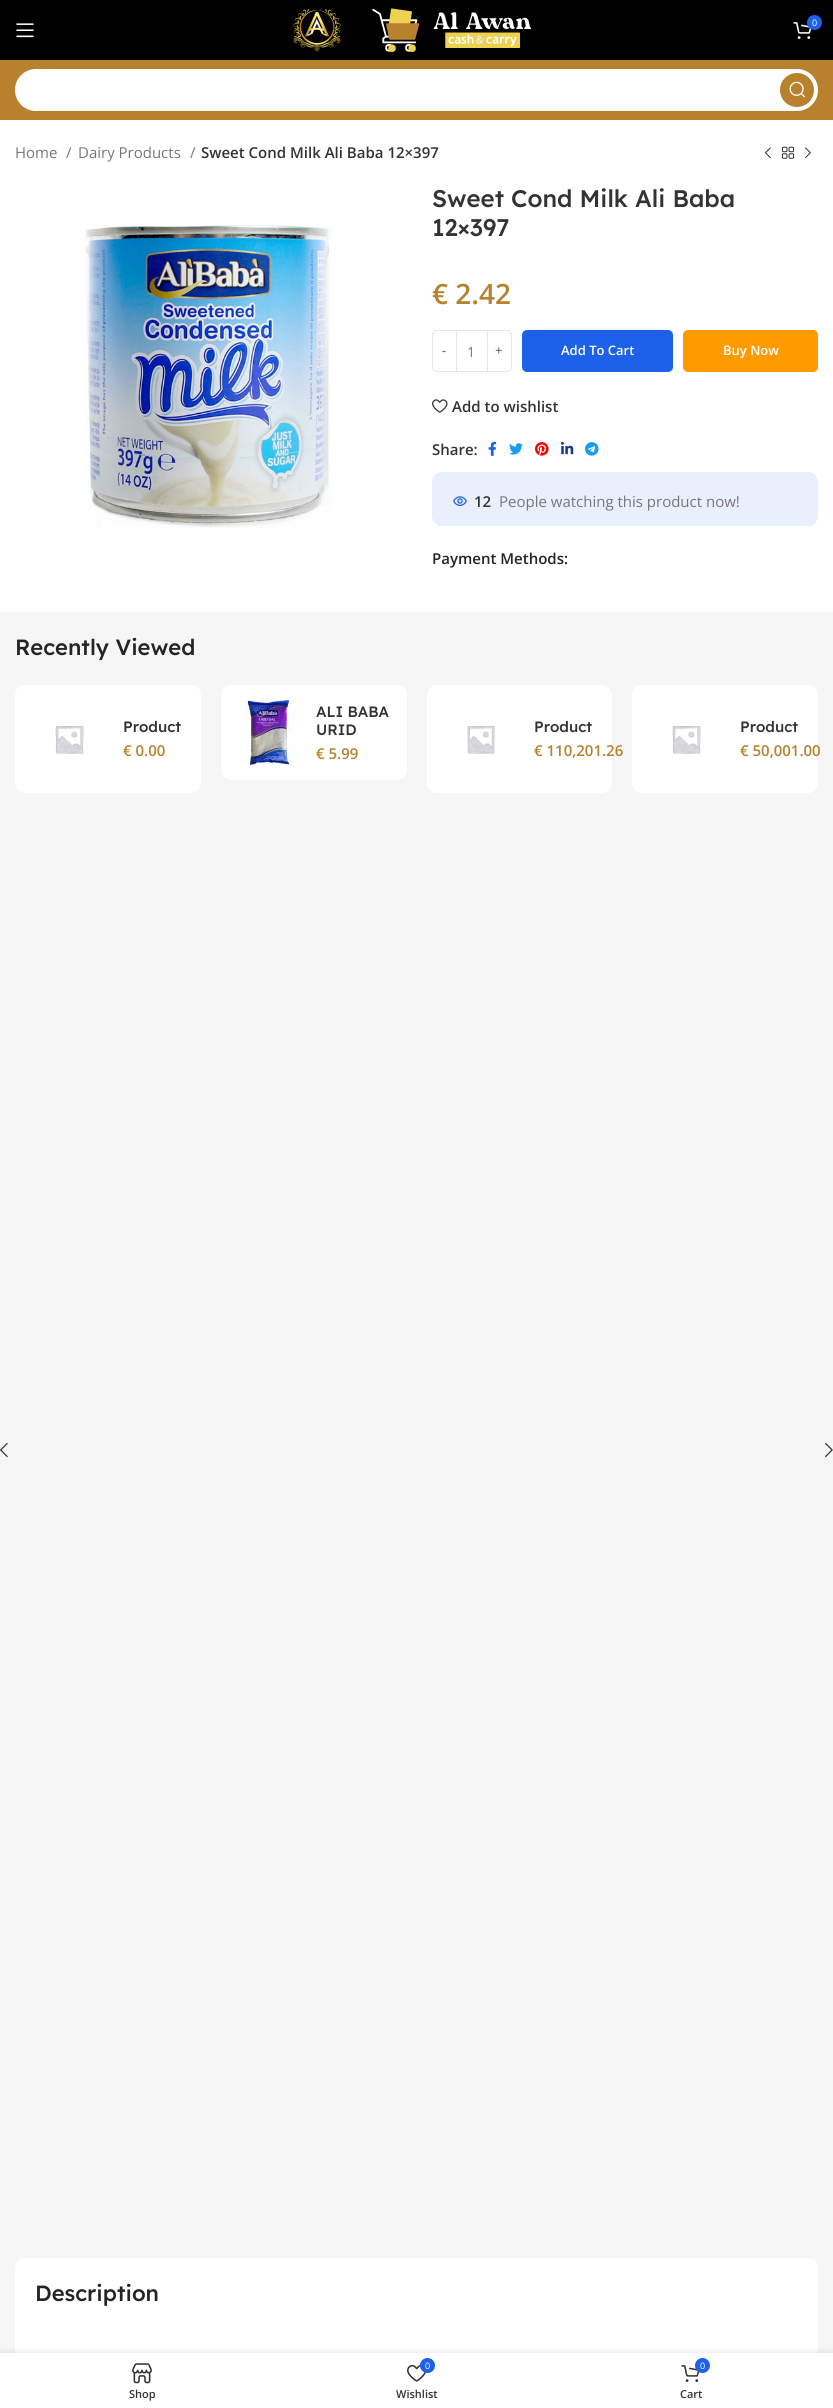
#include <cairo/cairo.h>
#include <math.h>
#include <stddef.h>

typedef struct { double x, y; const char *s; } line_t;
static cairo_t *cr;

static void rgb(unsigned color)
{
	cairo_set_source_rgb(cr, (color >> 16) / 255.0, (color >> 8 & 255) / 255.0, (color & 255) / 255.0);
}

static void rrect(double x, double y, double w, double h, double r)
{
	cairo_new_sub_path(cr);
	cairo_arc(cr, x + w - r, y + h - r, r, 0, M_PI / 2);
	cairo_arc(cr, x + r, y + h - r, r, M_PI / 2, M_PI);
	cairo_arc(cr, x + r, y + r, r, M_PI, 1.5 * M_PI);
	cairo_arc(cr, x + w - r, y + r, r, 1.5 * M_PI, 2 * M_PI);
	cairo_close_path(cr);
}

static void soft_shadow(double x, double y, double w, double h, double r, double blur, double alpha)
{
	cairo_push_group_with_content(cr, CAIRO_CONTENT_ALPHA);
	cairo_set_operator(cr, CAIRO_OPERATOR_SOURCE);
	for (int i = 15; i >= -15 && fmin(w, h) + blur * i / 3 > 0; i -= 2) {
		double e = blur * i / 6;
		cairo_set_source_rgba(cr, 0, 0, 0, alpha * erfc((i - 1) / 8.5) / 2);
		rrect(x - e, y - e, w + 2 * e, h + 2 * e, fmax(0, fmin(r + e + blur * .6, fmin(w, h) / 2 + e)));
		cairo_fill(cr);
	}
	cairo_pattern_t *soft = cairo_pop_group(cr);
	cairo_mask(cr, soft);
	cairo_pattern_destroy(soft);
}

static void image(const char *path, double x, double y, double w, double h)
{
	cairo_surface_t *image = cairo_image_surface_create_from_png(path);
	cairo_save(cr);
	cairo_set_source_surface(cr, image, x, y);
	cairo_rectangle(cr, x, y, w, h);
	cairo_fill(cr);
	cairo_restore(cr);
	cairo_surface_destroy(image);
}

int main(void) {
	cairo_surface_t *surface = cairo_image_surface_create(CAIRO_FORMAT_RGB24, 833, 2408);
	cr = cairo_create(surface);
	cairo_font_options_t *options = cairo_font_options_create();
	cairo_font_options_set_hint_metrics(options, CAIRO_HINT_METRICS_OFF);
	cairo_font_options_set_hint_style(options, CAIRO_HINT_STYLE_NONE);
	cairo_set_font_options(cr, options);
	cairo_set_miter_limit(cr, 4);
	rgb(0xf6f6f6);
	cairo_paint(cr);
	rgb(0x000000);
	cairo_rectangle(cr, 0, 0, 833, 60);
	cairo_fill(cr);
	image("img/1.png", 16, 23, 18, 15);
	image("img/2.png", 293, 9, 48, 42);
	image("img/3.png", 372, 8, 159, 44);
	image("img/4.png", 793, 22, 19, 17);
	rgb(0x1c61e7);
	cairo_arc(cr, 814.5, 22.5, 7.5, 0, 2 * M_PI);
	cairo_fill(cr);
	rgb(0xb8812d);
	cairo_rectangle(cr, 0, 60, 833, 60);
	cairo_fill(cr);
	rgb(0xffffff);
	rrect(15, 69, 803, 42, 21);
	cairo_fill(cr);
	rrect(15.5, 69.5, 802, 41, 20.5);
	cairo_set_source_rgba(cr, 1, 1, 1, 0.2);
	cairo_set_line_width(cr, 1);
	cairo_stroke(cr);
	rgb(0xb8812d);
	cairo_arc(cr, 797, 90, 17, 0, 2 * M_PI);
	cairo_fill(cr);
	image("img/5.png", 789, 81, 16, 17);
	rgb(0xffffff);
	cairo_rectangle(cr, 0, 120, 833, 492);
	cairo_fill(cr);
	image("img/6.png", 765, 147, 6, 12);
	image("img/7.png", 782, 146, 12, 13);
	image("img/8.png", 805, 147, 6, 12);
	image("img/9.png", 85, 225, 247, 303);
	cairo_new_path(cr);
	cairo_move_to(cr, 437, 330.5);
	cairo_line_to(cr, 456.5, 330.5);
	cairo_line_to(cr, 456.5, 371.5);
	cairo_line_to(cr, 437, 371.5);
	cairo_curve_to(cr, 434.5, 371.5, 432.5, 369.5, 432.5, 367);
	cairo_line_to(cr, 432.5, 335);
	cairo_curve_to(cr, 432.5, 332.5, 434.5, 330.5, 437, 330.5);
	cairo_close_path(cr);
	rgb(0xe6e6e6);
	cairo_stroke(cr);
	cairo_rectangle(cr, 457, 330, 30, 1);
	cairo_fill(cr);
	cairo_rectangle(cr, 457, 371, 30, 1);
	cairo_fill(cr);
	cairo_new_path(cr);
	cairo_move_to(cr, 487.5, 330.5);
	cairo_line_to(cr, 507, 330.5);
	cairo_curve_to(cr, 509.5, 330.5, 511.5, 332.5, 511.5, 335);
	cairo_line_to(cr, 511.5, 367);
	cairo_curve_to(cr, 511.5, 369.5, 509.5, 371.5, 507, 371.5);
	cairo_line_to(cr, 487.5, 371.5);
	cairo_close_path(cr);
	cairo_stroke(cr);
	rgb(0x1c61e7);
	rrect(522, 330, 151, 42, 5);
	cairo_fill(cr);
	rgb(0xff9b00);
	rrect(683, 330, 135, 42, 5);
	cairo_fill(cr);
	image("img/10.png", 432, 399, 16, 14);
	image("img/11.png", 488, 441, 9, 15);
	image("img/12.png", 509, 443, 14, 12);
	image("img/13.png", 535, 442, 14, 14);
	image("img/14.png", 561, 441, 13, 14);
	image("img/15.png", 585, 442, 14, 14);
	image("img/16.png", 453, 496, 14, 10);
	cairo_set_source_rgba(cr, 0.11, 0.38, 0.906, 0.1);
	rrect(432, 472, 386, 54, 10);
	cairo_fill(cr);
	rgb(0xffffff);
	rrect(15, 685, 186, 108, 10);
	cairo_fill(cr);
	image("img/17.png", 55, 726, 29, 28);
	rrect(221, 685, 186, 95, 10);
	cairo_fill(cr);
	image("img/18.png", 236, 700, 64, 65);
	rrect(427, 685, 185, 108, 10);
	cairo_fill(cr);
	image("img/19.png", 467, 726, 28, 28);
	rrect(632, 685, 186, 108, 10);
	cairo_fill(cr);
	image("img/17.png", 672, 726, 29, 28);
	image("img/20.png", 0, 1442, 8, 16);
	image("img/21.png", 825, 1442, 8, 16);
	rrect(15, 2258, 803, 101, 10);
	cairo_fill(cr);
	rgb(0x000000);
	soft_shadow(0, 2353, 833, 55, 0, 4.5, 0.12);
	rgb(0xffffff);
	cairo_rectangle(cr, 0, 2353, 833, 55);
	cairo_fill(cr);
	image("img/22.png", 132, 2363, 20, 21);
	image("img/23.png", 407, 2364, 20, 18);
	rgb(0x1c61e7);
	cairo_arc(cr, 427.5, 2365.5, 7.5, 0, 2 * M_PI);
	cairo_fill(cr);
	image("img/24.png", 681, 2365, 19, 17);
	cairo_arc(cr, 702.5, 2365.5, 7.5, 0, 2 * M_PI);
	cairo_fill(cr);
	cairo_select_font_face(cr, "Open Sans", CAIRO_FONT_SLANT_NORMAL, CAIRO_FONT_WEIGHT_NORMAL);
	cairo_set_font_size(cr, 9);
	rgb(0xffffff);
	cairo_move_to(cr, 812, 26);
	cairo_show_text(cr, "0");
	cairo_set_font_size(cr, 15);
	rgb(0x777777);
	{
		static const line_t items[] = {
			{15, 158, "Home"},
			{66, 158, "/"},
			{78, 158, "Dairy Products"},
			{190, 158, "/"},
		};
		for (size_t i = 0; i < sizeof items / sizeof *items; i++) {
			cairo_move_to(cr, items[i].x, items[i].y);
			cairo_show_text(cr, items[i].s);
		}
	}
	cairo_select_font_face(cr, "Open Sans SemiBold", CAIRO_FONT_SLANT_NORMAL, CAIRO_FONT_WEIGHT_NORMAL);
	rgb(0x333333);
	cairo_move_to(cr, 201, 158);
	cairo_show_text(cr, "Sweet Cond Milk Ali Baba 12×397");
	cairo_select_font_face(cr, "Lexend Deca Medium", CAIRO_FONT_SLANT_NORMAL, CAIRO_FONT_WEIGHT_NORMAL);
	cairo_set_font_size(cr, 24);
	cairo_move_to(cr, 432, 207);
	cairo_show_text(cr, "Sweet Cond Milk Ali Baba");
	cairo_move_to(cr, 432, 236);
	cairo_show_text(cr, "12×397");
	cairo_select_font_face(cr, "Open Sans SemiBold", CAIRO_FONT_SLANT_NORMAL, CAIRO_FONT_WEIGHT_NORMAL);
	cairo_set_font_size(cr, 28);
	rgb(0xb8812d);
	cairo_move_to(cr, 432, 304);
	cairo_show_text(cr, "€ 2.42");
	cairo_set_font_size(cr, 13);
	rgb(0x777777);
	cairo_move_to(cr, 442, 355);
	cairo_show_text(cr, "-");
	cairo_select_font_face(cr, "Open Sans", CAIRO_FONT_SLANT_NORMAL, CAIRO_FONT_WEIGHT_NORMAL);
	cairo_set_font_size(cr, 14);
	cairo_move_to(cr, 467, 357);
	cairo_show_text(cr, "1");
	cairo_select_font_face(cr, "Open Sans SemiBold", CAIRO_FONT_SLANT_NORMAL, CAIRO_FONT_WEIGHT_NORMAL);
	cairo_set_font_size(cr, 13);
	cairo_move_to(cr, 495, 355);
	cairo_show_text(cr, "+");
	rgb(0xffffff);
	cairo_move_to(cr, 561, 355);
	cairo_show_text(cr, "Add To Cart");
	cairo_move_to(cr, 723, 355);
	cairo_show_text(cr, "Buy Now");
	cairo_set_font_size(cr, 15);
	rgb(0x333333);
	{
		static const line_t items[] = {
			{452, 412, "Add to wishlist"},
			{432, 455, "Share:"},
			{474, 507, "12"},
		};
		for (size_t i = 0; i < sizeof items / sizeof *items; i++) {
			cairo_move_to(cr, items[i].x, items[i].y);
			cairo_show_text(cr, items[i].s);
		}
	}
	cairo_select_font_face(cr, "Open Sans", CAIRO_FONT_SLANT_NORMAL, CAIRO_FONT_WEIGHT_NORMAL);
	rgb(0x777777);
	cairo_move_to(cr, 499, 507);
	cairo_show_text(cr, "People watching this product now!");
	cairo_select_font_face(cr, "Open Sans SemiBold", CAIRO_FONT_SLANT_NORMAL, CAIRO_FONT_WEIGHT_NORMAL);
	rgb(0x242424);
	cairo_move_to(cr, 432, 564);
	cairo_show_text(cr, "Payment Methods:");
	cairo_select_font_face(cr, "Lexend Deca Medium", CAIRO_FONT_SLANT_NORMAL, CAIRO_FONT_WEIGHT_NORMAL);
	cairo_set_font_size(cr, 22);
	cairo_move_to(cr, 15, 655);
	cairo_show_text(cr, "Recently Viewed");
	cairo_set_font_size(cr, 15);
	rgb(0x333333);
	cairo_move_to(cr, 123, 732);
	cairo_show_text(cr, "Product");
	cairo_select_font_face(cr, "Open Sans SemiBold", CAIRO_FONT_SLANT_NORMAL, CAIRO_FONT_WEIGHT_NORMAL);
	rgb(0xb8812d);
	cairo_move_to(cr, 123, 756);
	cairo_show_text(cr, "€ 0.00");
	cairo_select_font_face(cr, "Lexend Deca Medium", CAIRO_FONT_SLANT_NORMAL, CAIRO_FONT_WEIGHT_NORMAL);
	rgb(0x333333);
	cairo_move_to(cr, 316, 717);
	cairo_show_text(cr, "ALI BABA");
	cairo_move_to(cr, 316, 735);
	cairo_show_text(cr, "URID");
	cairo_select_font_face(cr, "Open Sans SemiBold", CAIRO_FONT_SLANT_NORMAL, CAIRO_FONT_WEIGHT_NORMAL);
	rgb(0xb8812d);
	cairo_move_to(cr, 316, 759);
	cairo_show_text(cr, "€ 5.99");
	cairo_select_font_face(cr, "Lexend Deca Medium", CAIRO_FONT_SLANT_NORMAL, CAIRO_FONT_WEIGHT_NORMAL);
	rgb(0x333333);
	cairo_move_to(cr, 534, 732);
	cairo_show_text(cr, "Product");
	cairo_select_font_face(cr, "Open Sans SemiBold", CAIRO_FONT_SLANT_NORMAL, CAIRO_FONT_WEIGHT_NORMAL);
	rgb(0xb8812d);
	cairo_move_to(cr, 534, 756);
	cairo_show_text(cr, "€ 110,201.26");
	cairo_select_font_face(cr, "Lexend Deca Medium", CAIRO_FONT_SLANT_NORMAL, CAIRO_FONT_WEIGHT_NORMAL);
	rgb(0x333333);
	cairo_move_to(cr, 740, 732);
	cairo_show_text(cr, "Product");
	cairo_select_font_face(cr, "Open Sans SemiBold", CAIRO_FONT_SLANT_NORMAL, CAIRO_FONT_WEIGHT_NORMAL);
	rgb(0xb8812d);
	cairo_move_to(cr, 740, 756);
	cairo_show_text(cr, "€ 50,001.00");
	cairo_select_font_face(cr, "Lexend Deca Medium", CAIRO_FONT_SLANT_NORMAL, CAIRO_FONT_WEIGHT_NORMAL);
	cairo_set_font_size(cr, 22);
	rgb(0x242424);
	cairo_move_to(cr, 35, 2301);
	cairo_show_text(cr, "Description");
	cairo_select_font_face(cr, "Open Sans SemiBold", CAIRO_FONT_SLANT_NORMAL, CAIRO_FONT_WEIGHT_NORMAL);
	cairo_set_font_size(cr, 11);
	rgb(0x333333);
	cairo_move_to(cr, 129, 2398);
	cairo_show_text(cr, "Shop");
	cairo_select_font_face(cr, "Open Sans", CAIRO_FONT_SLANT_NORMAL, CAIRO_FONT_WEIGHT_NORMAL);
	cairo_set_font_size(cr, 9);
	rgb(0xffffff);
	cairo_move_to(cr, 425, 2369);
	cairo_show_text(cr, "0");
	cairo_select_font_face(cr, "Open Sans SemiBold", CAIRO_FONT_SLANT_NORMAL, CAIRO_FONT_WEIGHT_NORMAL);
	cairo_set_font_size(cr, 11);
	rgb(0x333333);
	cairo_move_to(cr, 396, 2398);
	cairo_show_text(cr, "Wishlist");
	cairo_select_font_face(cr, "Open Sans", CAIRO_FONT_SLANT_NORMAL, CAIRO_FONT_WEIGHT_NORMAL);
	cairo_set_font_size(cr, 9);
	rgb(0xffffff);
	cairo_move_to(cr, 700, 2369);
	cairo_show_text(cr, "0");
	cairo_select_font_face(cr, "Open Sans SemiBold", CAIRO_FONT_SLANT_NORMAL, CAIRO_FONT_WEIGHT_NORMAL);
	cairo_set_font_size(cr, 11);
	rgb(0x333333);
	cairo_move_to(cr, 680, 2398);
	cairo_show_text(cr, "Cart");
	cairo_surface_write_to_png(surface, "page.png");
	cairo_font_options_destroy(options);
	cairo_destroy(cr);
	cairo_surface_destroy(surface);
	return 0;
}
